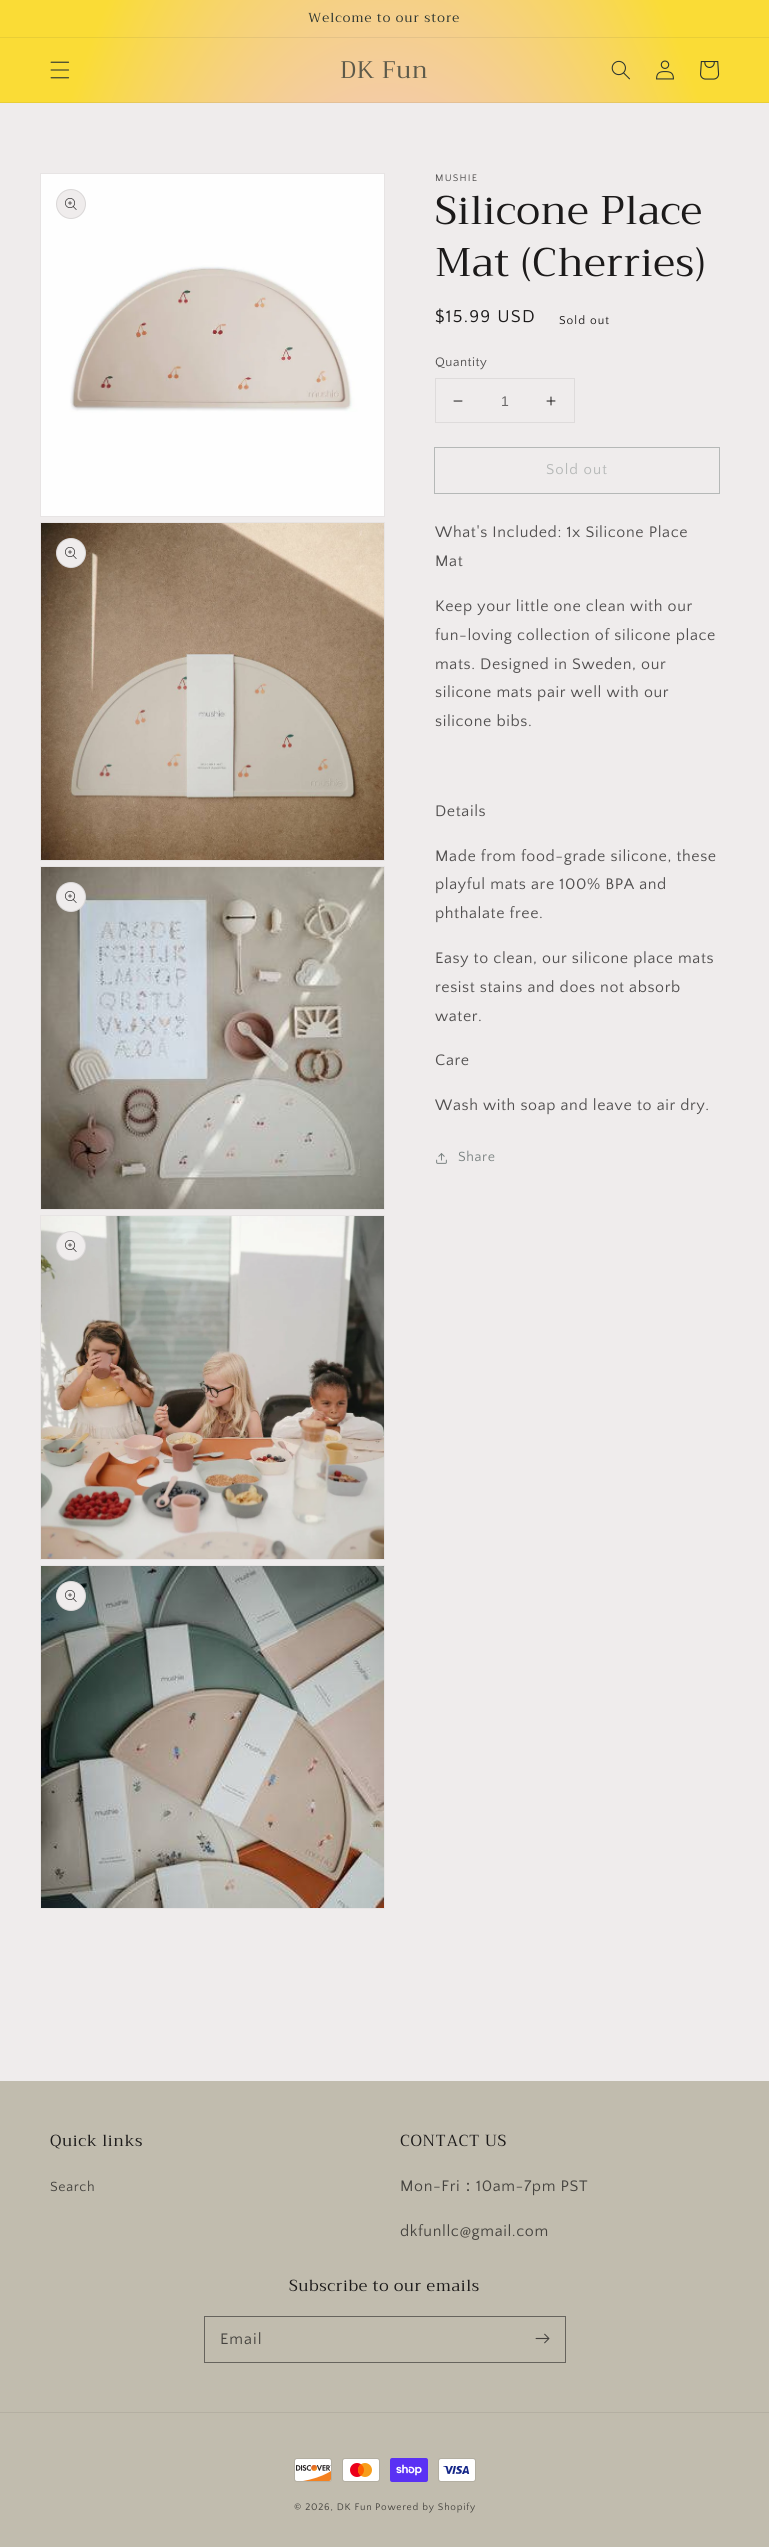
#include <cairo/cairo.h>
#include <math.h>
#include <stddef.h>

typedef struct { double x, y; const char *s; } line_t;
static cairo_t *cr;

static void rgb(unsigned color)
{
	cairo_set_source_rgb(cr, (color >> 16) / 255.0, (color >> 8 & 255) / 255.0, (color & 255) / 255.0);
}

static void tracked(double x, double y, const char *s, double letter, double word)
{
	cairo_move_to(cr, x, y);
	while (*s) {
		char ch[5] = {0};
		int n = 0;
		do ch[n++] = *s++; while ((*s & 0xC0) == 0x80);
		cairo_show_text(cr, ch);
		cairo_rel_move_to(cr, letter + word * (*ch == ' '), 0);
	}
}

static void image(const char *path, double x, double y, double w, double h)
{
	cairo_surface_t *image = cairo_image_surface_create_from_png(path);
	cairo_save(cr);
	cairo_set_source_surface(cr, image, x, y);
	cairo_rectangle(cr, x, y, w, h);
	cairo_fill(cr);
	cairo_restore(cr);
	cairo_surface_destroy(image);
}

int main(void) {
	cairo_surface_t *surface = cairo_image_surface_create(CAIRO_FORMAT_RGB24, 769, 2547);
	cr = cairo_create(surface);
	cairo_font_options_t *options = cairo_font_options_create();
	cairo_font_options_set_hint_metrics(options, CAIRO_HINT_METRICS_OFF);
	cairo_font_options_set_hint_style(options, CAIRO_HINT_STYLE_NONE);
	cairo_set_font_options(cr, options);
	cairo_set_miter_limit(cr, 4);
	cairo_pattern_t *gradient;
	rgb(0xefecec);
	cairo_paint(cr);
	gradient = cairo_pattern_create_radial(0, 0, 0, 0, 0, 1);
	cairo_pattern_set_matrix(gradient, &(cairo_matrix_t){1.0 / 544, 0, 0, 1.0 / 1801, -1.0 * 385 / 544, -1.0 * 1274 / 1801});
	cairo_pattern_add_color_stop_rgba(gradient, 0.11, 0.98, 0.863, 0.212, 1);
	cairo_pattern_add_color_stop_rgba(gradient, 0.31, 0.969, 0.98, 0.251, 1);
	cairo_pattern_add_color_stop_rgba(gradient, 0.49, 0.996, 0.384, 0.573, 1);
	cairo_pattern_add_color_stop_rgba(gradient, 0.6, 0.949, 0.784, 0.741, 1);
	cairo_pattern_add_color_stop_rgba(gradient, 0.87, 0.98, 0.863, 0.212, 1);
	cairo_set_source(cr, gradient);
	cairo_pattern_destroy(gradient);
	cairo_rectangle(cr, 0, 0, 769, 37);
	cairo_fill(cr);
	gradient = cairo_pattern_create_radial(0, 0, 0, 0, 0, 1);
	cairo_pattern_set_matrix(gradient, &(cairo_matrix_t){1.0 / 544, 0, 0, 1.0 / 1801, -1.0 * 385 / 544, -1.0 * 1274 / 1801});
	cairo_pattern_add_color_stop_rgba(gradient, 0.11, 0.914, 0.808, 0.208, 1);
	cairo_pattern_add_color_stop_rgba(gradient, 0.31, 0.906, 0.918, 0.247, 1);
	cairo_pattern_add_color_stop_rgba(gradient, 0.49, 0.929, 0.369, 0.541, 1);
	cairo_pattern_add_color_stop_rgba(gradient, 0.6, 0.886, 0.737, 0.698, 1);
	cairo_pattern_add_color_stop_rgba(gradient, 0.87, 0.914, 0.808, 0.208, 1);
	cairo_set_source(cr, gradient);
	cairo_pattern_destroy(gradient);
	cairo_rectangle(cr, 0, 37, 769, 1);
	cairo_fill(cr);
	gradient = cairo_pattern_create_radial(0, 0, 0, 0, 0, 1);
	cairo_pattern_set_matrix(gradient, &(cairo_matrix_t){1.0 / 544, 0, 0, 1.0 / 1801, -1.0 * 385 / 544, -1.0 * 1274 / 1801});
	cairo_pattern_add_color_stop_rgba(gradient, 0.11, 0.98, 0.863, 0.212, 1);
	cairo_pattern_add_color_stop_rgba(gradient, 0.31, 0.969, 0.98, 0.251, 1);
	cairo_pattern_add_color_stop_rgba(gradient, 0.49, 0.996, 0.384, 0.573, 1);
	cairo_pattern_add_color_stop_rgba(gradient, 0.6, 0.949, 0.784, 0.741, 1);
	cairo_pattern_add_color_stop_rgba(gradient, 0.87, 0.98, 0.863, 0.212, 1);
	cairo_set_source(cr, gradient);
	cairo_pattern_destroy(gradient);
	cairo_rectangle(cr, 0, 38, 769, 64);
	cairo_fill(cr);
	gradient = cairo_pattern_create_radial(0, 0, 0, 0, 0, 1);
	cairo_pattern_set_matrix(gradient, &(cairo_matrix_t){1.0 / 544, 0, 0, 1.0 / 1801, -1.0 * 385 / 544, -1.0 * 1274 / 1801});
	cairo_pattern_add_color_stop_rgba(gradient, 0.11, 0.914, 0.808, 0.208, 1);
	cairo_pattern_add_color_stop_rgba(gradient, 0.31, 0.906, 0.918, 0.247, 1);
	cairo_pattern_add_color_stop_rgba(gradient, 0.49, 0.929, 0.369, 0.541, 1);
	cairo_pattern_add_color_stop_rgba(gradient, 0.6, 0.886, 0.737, 0.698, 1);
	cairo_pattern_add_color_stop_rgba(gradient, 0.87, 0.914, 0.808, 0.208, 1);
	cairo_set_source(cr, gradient);
	cairo_pattern_destroy(gradient);
	cairo_rectangle(cr, 0, 102, 769, 1);
	cairo_fill(cr);
	image("img/1.png", 50, 61, 20, 18);
	image("img/2.png", 611, 60, 19, 20);
	image("img/3.png", 656, 60, 18, 20);
	image("img/4.png", 700, 61, 20, 19);
	cairo_rectangle(cr, 40.5, 173.5, 344, 343);
	rgb(0xe7e4e4);
	cairo_set_line_width(cr, 1);
	cairo_stroke(cr);
	image("img/5.png", 41, 174, 343, 342);
	rgb(0xefecec);
	cairo_arc(cr, 71, 204, 15, 0, 2 * M_PI);
	cairo_fill(cr);
	cairo_arc(cr, 71, 204, 14.5, 0, 2 * M_PI);
	cairo_set_source_rgba(cr, 0.11, 0.102, 0.102, 0.1);
	cairo_stroke(cr);
	image("img/6.png", 65, 198, 12, 12);
	cairo_rectangle(cr, 40.5, 522.5, 344, 338);
	rgb(0xe7e4e4);
	cairo_stroke(cr);
	image("img/7.png", 41, 523, 343, 337);
	rgb(0xefecec);
	cairo_arc(cr, 71, 553, 15, 0, 2 * M_PI);
	cairo_fill(cr);
	cairo_arc(cr, 71, 553, 14.5, 0, 2 * M_PI);
	cairo_set_source_rgba(cr, 0.11, 0.102, 0.102, 0.1);
	cairo_stroke(cr);
	image("img/6.png", 65, 547, 12, 12);
	cairo_rectangle(cr, 40.5, 866.5, 344, 343);
	rgb(0xe7e4e4);
	cairo_stroke(cr);
	image("img/8.png", 41, 867, 343, 342);
	rgb(0xefecec);
	cairo_arc(cr, 71, 897, 15, 0, 2 * M_PI);
	cairo_fill(cr);
	cairo_arc(cr, 71, 897, 14.5, 0, 2 * M_PI);
	cairo_set_source_rgba(cr, 0.11, 0.102, 0.102, 0.1);
	cairo_stroke(cr);
	image("img/6.png", 65, 891, 12, 12);
	cairo_rectangle(cr, 40.5, 1215.5, 344, 344);
	rgb(0xe7e4e4);
	cairo_stroke(cr);
	image("img/9.png", 41, 1216, 343, 343);
	rgb(0xefecec);
	cairo_arc(cr, 71, 1246, 15, 0, 2 * M_PI);
	cairo_fill(cr);
	cairo_arc(cr, 71, 1246, 14.5, 0, 2 * M_PI);
	cairo_set_source_rgba(cr, 0.11, 0.102, 0.102, 0.1);
	cairo_stroke(cr);
	image("img/6.png", 65, 1240, 12, 12);
	cairo_rectangle(cr, 40.5, 1565.5, 344, 343);
	rgb(0xe7e4e4);
	cairo_stroke(cr);
	image("img/10.png", 41, 1566, 343, 342);
	rgb(0xefecec);
	cairo_arc(cr, 71, 1596, 15, 0, 2 * M_PI);
	cairo_fill(cr);
	cairo_arc(cr, 71, 1596, 14.5, 0, 2 * M_PI);
	cairo_set_source_rgba(cr, 0.11, 0.102, 0.102, 0.1);
	cairo_stroke(cr);
	image("img/6.png", 65, 1590, 12, 12);
	cairo_rectangle(cr, 435.5, 378.5, 139, 44);
	rgb(0xdedbdb);
	cairo_stroke(cr);
	image("img/11.png", 453, 400, 10, 2);
	image("img/12.png", 546, 396, 10, 10);
	cairo_rectangle(cr, 434.5, 447.5, 285, 46);
	rgb(0xb5b8b7);
	cairo_stroke(cr);
	image("img/13.png", 436, 1153, 11, 11);
	rgb(0xc1bcae);
	cairo_rectangle(cr, 0, 2081, 769, 466);
	cairo_fill(cr);
	cairo_rectangle(cr, 204.5, 2316.5, 361, 46);
	rgb(0x66635d);
	cairo_stroke(cr);
	image("img/14.png", 535, 2333, 15, 11);
	rgb(0xb4afa2);
	cairo_rectangle(cr, 0, 2412, 769, 1);
	cairo_fill(cr);
	image("img/15.png", 294, 2458, 38, 24);
	image("img/16.png", 342, 2458, 38, 24);
	image("img/17.png", 390, 2458, 38, 24);
	image("img/18.png", 438, 2458, 38, 24);
	cairo_select_font_face(cr, "Trirong", CAIRO_FONT_SLANT_NORMAL, CAIRO_FONT_WEIGHT_NORMAL);
	cairo_set_font_size(cr, 13);
	rgb(0x2a332f);
	tracked(308, 22, "Welcome to our store", 1, 0);
	cairo_set_font_size(cr, 24);
	rgb(0x5d5a4a);
	tracked(340, 78, "DK Fun", 0.6, 0);
	cairo_select_font_face(cr, "Quattrocento Sans", CAIRO_FONT_SLANT_NORMAL, CAIRO_FONT_WEIGHT_NORMAL);
	cairo_set_font_size(cr, 10);
	rgb(0x514f4f);
	tracked(435, 181, "MUSHIE", 1.25, 0);
	cairo_select_font_face(cr, "Trirong", CAIRO_FONT_SLANT_NORMAL, CAIRO_FONT_WEIGHT_NORMAL);
	cairo_set_font_size(cr, 40);
	rgb(0x1c1a1a);
	tracked(435, 224, "Silicone Place", 0.6, 0);
	tracked(435, 276, "Mat (Cherries)", 0.6, 0);
	cairo_select_font_face(cr, "Quattrocento Sans", CAIRO_FONT_SLANT_NORMAL, CAIRO_FONT_WEIGHT_NORMAL);
	cairo_set_font_size(cr, 18);
	tracked(435, 322, "$15.99 USD", 1.25, 0);
	cairo_set_font_size(cr, 12);
	tracked(559, 324, "Sold out", 1, 0);
	cairo_set_font_size(cr, 13);
	rgb(0x514f4f);
	tracked(435, 366, "Quantity", 0.5, 0);
	cairo_select_font_face(cr, "Liberation Sans", CAIRO_FONT_SLANT_NORMAL, CAIRO_FONT_WEIGHT_NORMAL);
	cairo_set_font_size(cr, 14);
	rgb(0x696767);
	cairo_move_to(cr, 501, 406);
	cairo_show_text(cr, "1");
	cairo_select_font_face(cr, "Quattrocento Sans", CAIRO_FONT_SLANT_NORMAL, CAIRO_FONT_WEIGHT_NORMAL);
	cairo_set_font_size(cr, 15);
	rgb(0xb5b8b7);
	tracked(546, 474, "Sold out", 1, 0);
	cairo_set_font_size(cr, 16);
	rgb(0x514f4f);
	{
		static const line_t items[] = {
			{435, 537, "What's Included: 1x Silicone Place"},
			{435, 566, "Mat"},
			{435, 611, "Keep your little one clean with our"},
			{435, 640, "fun-loving collection of silicone place"},
			{435, 669, "mats. Designed in Sweden, our"},
			{435, 697, "silicone mats pair well with our"},
			{435, 726, "silicone bibs."},
			{435, 816, "Details"},
			{435, 861, "Made from food-grade silicone, these"},
			{435, 889, "playful mats are 100% BPA and"},
			{435, 918, "phthalate free."},
			{435, 963, "Easy to clean, our silicone place mats"},
			{435, 992, "resist stains and does not absorb"},
			{435, 1021, "water."},
			{435, 1065, "Care"},
			{435, 1110, "Wash with soap and leave to air dry."},
		};
		for (size_t i = 0; i < sizeof items / sizeof *items; i++) {
			tracked(items[i].x, items[i].y, items[i].s, 0.6, 0);
		}
	}
	cairo_set_font_size(cr, 14);
	rgb(0x7b8382);
	tracked(458, 1161, "Share", 0.6, 0);
	cairo_select_font_face(cr, "Trirong", CAIRO_FONT_SLANT_NORMAL, CAIRO_FONT_WEIGHT_NORMAL);
	cairo_set_font_size(cr, 16);
	rgb(0x1c1a1a);
	tracked(50, 2146, "Quick links", 0.6, 0);
	cairo_select_font_face(cr, "Quattrocento Sans", CAIRO_FONT_SLANT_NORMAL, CAIRO_FONT_WEIGHT_NORMAL);
	cairo_set_font_size(cr, 14);
	rgb(0x45433f);
	tracked(50, 2191, "Search", 0.6, 0);
	cairo_select_font_face(cr, "Trirong", CAIRO_FONT_SLANT_NORMAL, CAIRO_FONT_WEIGHT_NORMAL);
	cairo_set_font_size(cr, 16);
	rgb(0x1c1a1a);
	tracked(400, 2146, "CONTACT US", 0.6, 0);
	cairo_select_font_face(cr, "Quattrocento Sans", CAIRO_FONT_SLANT_NORMAL, CAIRO_FONT_WEIGHT_NORMAL);
	rgb(0x45433f);
	tracked(400, 2191, "Mon-Fri", 0.6, 0);
	cairo_select_font_face(cr, "WenQuanYi Zen Hei Medium", CAIRO_FONT_SLANT_NORMAL, CAIRO_FONT_WEIGHT_NORMAL);
	tracked(460, 2191, "：", 0.6, 0);
	cairo_select_font_face(cr, "Quattrocento Sans", CAIRO_FONT_SLANT_NORMAL, CAIRO_FONT_WEIGHT_NORMAL);
	tracked(476, 2191, "10am-7pm PST", 0.6, 0);
	tracked(400, 2236, "dkfunllc@gmail.com", 0.6, 0);
	cairo_select_font_face(cr, "Trirong", CAIRO_FONT_SLANT_NORMAL, CAIRO_FONT_WEIGHT_NORMAL);
	rgb(0x1c1a1a);
	tracked(289, 2291, "Subscribe to our emails", 0.6, 0);
	cairo_select_font_face(cr, "Quattrocento Sans", CAIRO_FONT_SLANT_NORMAL, CAIRO_FONT_WEIGHT_NORMAL);
	rgb(0x45433f);
	tracked(220, 2344, "Email", 1, 0);
	cairo_set_font_size(cr, 10);
	tracked(294, 2510, "© 2026, DK Fun", 0.75, 0);
	tracked(375, 2510, "Powered by Shopify", 0.75, 0);
	cairo_surface_write_to_png(surface, "page.png");
	cairo_font_options_destroy(options);
	cairo_destroy(cr);
	cairo_surface_destroy(surface);
	return 0;
}
